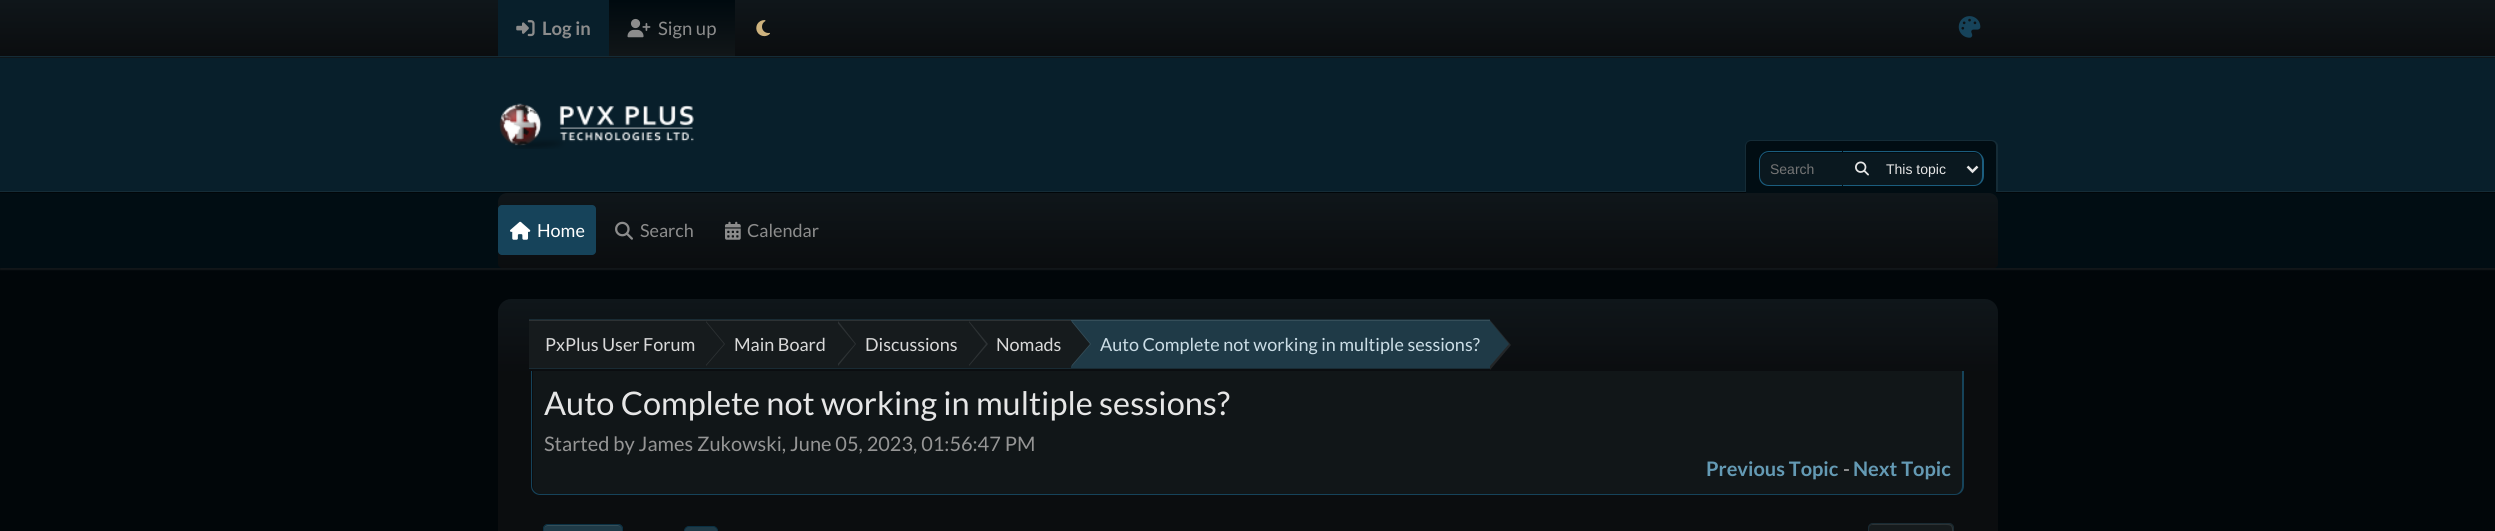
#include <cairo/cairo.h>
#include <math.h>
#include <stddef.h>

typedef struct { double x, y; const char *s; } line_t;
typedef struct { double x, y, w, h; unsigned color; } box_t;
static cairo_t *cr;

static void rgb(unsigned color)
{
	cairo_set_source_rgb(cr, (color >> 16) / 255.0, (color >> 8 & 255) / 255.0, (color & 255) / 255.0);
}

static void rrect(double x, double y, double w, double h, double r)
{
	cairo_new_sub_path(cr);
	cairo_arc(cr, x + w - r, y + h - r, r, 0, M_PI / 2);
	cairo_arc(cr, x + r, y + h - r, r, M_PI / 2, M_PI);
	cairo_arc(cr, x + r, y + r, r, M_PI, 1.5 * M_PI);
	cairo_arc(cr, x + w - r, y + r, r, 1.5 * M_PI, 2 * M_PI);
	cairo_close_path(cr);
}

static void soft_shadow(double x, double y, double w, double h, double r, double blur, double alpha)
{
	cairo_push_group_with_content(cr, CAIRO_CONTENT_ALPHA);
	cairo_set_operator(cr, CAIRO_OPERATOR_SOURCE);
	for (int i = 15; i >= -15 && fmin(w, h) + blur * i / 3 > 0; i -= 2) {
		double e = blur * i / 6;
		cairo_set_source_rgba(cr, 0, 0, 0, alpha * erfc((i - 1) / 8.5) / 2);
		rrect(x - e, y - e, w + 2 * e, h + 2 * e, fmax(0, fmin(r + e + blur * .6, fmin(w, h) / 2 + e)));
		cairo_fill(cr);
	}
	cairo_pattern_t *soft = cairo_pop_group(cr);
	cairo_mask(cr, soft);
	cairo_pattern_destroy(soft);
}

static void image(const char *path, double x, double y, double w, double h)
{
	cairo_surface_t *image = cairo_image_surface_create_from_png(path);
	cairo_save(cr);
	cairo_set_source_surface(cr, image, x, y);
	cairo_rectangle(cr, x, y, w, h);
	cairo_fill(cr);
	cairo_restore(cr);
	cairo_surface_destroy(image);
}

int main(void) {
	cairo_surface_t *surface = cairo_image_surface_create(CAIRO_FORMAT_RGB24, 2495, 531);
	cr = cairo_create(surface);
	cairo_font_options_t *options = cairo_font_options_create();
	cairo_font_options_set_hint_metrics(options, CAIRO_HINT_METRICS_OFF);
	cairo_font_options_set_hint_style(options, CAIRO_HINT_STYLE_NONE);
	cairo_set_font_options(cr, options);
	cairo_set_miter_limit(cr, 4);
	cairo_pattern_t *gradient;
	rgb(0x010609);
	cairo_paint(cr);
	gradient = cairo_pattern_create_linear(1248, 0, 1248, 56);
	cairo_pattern_add_color_stop_rgba(gradient, 0, 0.059, 0.086, 0.102, 1);
	cairo_pattern_add_color_stop_rgba(gradient, 1, 0.043, 0.051, 0.059, 1);
	cairo_set_source(cr, gradient);
	cairo_pattern_destroy(gradient);
	cairo_rectangle(cr, 0, 0, 2495, 56);
	cairo_fill(cr);
	gradient = cairo_pattern_create_linear(1248, 56, 1248, 113);
	cairo_pattern_add_color_stop_rgba(gradient, 0, 0.059, 0.086, 0.102, 1);
	cairo_pattern_add_color_stop_rgba(gradient, 1, 0.043, 0.051, 0.059, 1);
	cairo_set_source(cr, gradient);
	cairo_pattern_destroy(gradient);
	cairo_rectangle(cr, 0, 57, 2495, 1);
	cairo_fill(cr);
	rgb(0x152c37);
	cairo_rectangle(cr, 0, 56, 2495, 1);
	cairo_fill(cr);
	rgb(0x081f2b);
	cairo_rectangle(cr, 498, 0, 111, 56);
	cairo_fill(cr);
	image("img/1.png", 516, 20, 19, 17);
	gradient = cairo_pattern_create_linear(672, 0, 672, 56);
	cairo_pattern_add_color_stop_rgba(gradient, 0, 0, 0.039, 0.059, 1);
	cairo_pattern_add_color_stop_rgba(gradient, 1, 0.067, 0.086, 0.094, 1);
	cairo_set_source(cr, gradient);
	cairo_pattern_destroy(gradient);
	cairo_rectangle(cr, 609, 0, 126, 56);
	cairo_fill(cr);
	image("img/2.png", 627, 18, 24, 20);
	image("img/3.png", 756, 20, 14, 17);
	image("img/4.png", 1958, 16, 23, 22);
	rgb(0x081f2b);
	cairo_rectangle(cr, 0, 58, 2495, 133);
	cairo_fill(cr);
	rgb(0x152c37);
	cairo_rectangle(cr, 0, 191, 2495, 1);
	cairo_fill(cr);
	image("img/5.png", 499, 103, 195, 46);
	rgb(0xaaaaaa);
	soft_shadow(0, 195, 2495, 75, 0, 0.5, 0.1);
	rgb(0x010d13);
	cairo_new_path(cr);
	cairo_move_to(cr, 1751, 141);
	cairo_line_to(cr, 1991, 141);
	cairo_curve_to(cr, 1994, 141, 1996, 143, 1996, 146);
	cairo_line_to(cr, 1996, 193);
	cairo_line_to(cr, 1746, 193);
	cairo_line_to(cr, 1746, 146);
	cairo_curve_to(cr, 1746, 143, 1748, 141, 1751, 141);
	cairo_close_path(cr);
	cairo_fill(cr);
	rgb(0x152c37);
	cairo_set_fill_rule(cr, CAIRO_FILL_RULE_EVEN_ODD);
	cairo_new_path(cr);
	cairo_move_to(cr, 1751, 140);
	cairo_line_to(cr, 1991, 140);
	cairo_curve_to(cr, 1995, 140, 1998, 143, 1998, 146);
	cairo_line_to(cr, 1998, 192);
	cairo_line_to(cr, 1745, 192);
	cairo_line_to(cr, 1745, 146);
	cairo_curve_to(cr, 1745, 143, 1748, 140, 1751, 140);
	cairo_close_path(cr);
	cairo_move_to(cr, 1751, 141);
	cairo_line_to(cr, 1991, 141);
	cairo_curve_to(cr, 1994, 141, 1996, 143, 1996, 146);
	cairo_line_to(cr, 1996, 192);
	cairo_line_to(cr, 1746, 192);
	cairo_line_to(cr, 1746, 146);
	cairo_curve_to(cr, 1746, 143, 1748, 141, 1751, 141);
	cairo_close_path(cr);
	cairo_fill(cr);
	rgb(0x0a181f);
	cairo_new_path(cr);
	cairo_move_to(cr, 1769, 153);
	cairo_line_to(cr, 1843, 153);
	cairo_line_to(cr, 1843, 185);
	cairo_line_to(cr, 1769, 185);
	cairo_curve_to(cr, 1764, 185, 1760, 181, 1760, 176);
	cairo_line_to(cr, 1760, 162);
	cairo_curve_to(cr, 1760, 157, 1764, 153, 1769, 153);
	cairo_close_path(cr);
	cairo_fill(cr);
	rgb(0x1b5d7e);
	cairo_new_path(cr);
	cairo_move_to(cr, 1769, 151);
	cairo_line_to(cr, 1842, 151);
	cairo_line_to(cr, 1842, 186);
	cairo_line_to(cr, 1769, 186);
	cairo_curve_to(cr, 1763, 186, 1759, 182, 1759, 176);
	cairo_line_to(cr, 1759, 161);
	cairo_curve_to(cr, 1759, 156, 1763, 151, 1769, 151);
	cairo_close_path(cr);
	cairo_move_to(cr, 1769, 152);
	cairo_line_to(cr, 1842, 152);
	cairo_line_to(cr, 1842, 185);
	cairo_line_to(cr, 1769, 185);
	cairo_curve_to(cr, 1764, 185, 1760, 181, 1760, 176);
	cairo_line_to(cr, 1760, 161);
	cairo_curve_to(cr, 1760, 156, 1764, 152, 1769, 152);
	cairo_close_path(cr);
	cairo_fill(cr);
	{
		static const box_t items[] = {
			{1843, 153, 38, 32, 0x0a181f},
			{1843, 151, 38, 1, 0x1b5d7e},
			{1843, 185, 38, 1, 0x1b5d7e},
		};
		for (size_t i = 0; i < sizeof items / sizeof *items; i++) {
			rgb(items[i].color);
			cairo_rectangle(cr, items[i].x, items[i].y, items[i].w, items[i].h);
			cairo_fill(cr);
		}
	}
	image("img/6.png", 1855, 161, 14, 15);
	rgb(0x0a181f);
	cairo_new_path(cr);
	cairo_move_to(cr, 1881, 153);
	cairo_line_to(cr, 1974, 153);
	cairo_curve_to(cr, 1979, 153, 1983, 157, 1983, 162);
	cairo_line_to(cr, 1983, 176);
	cairo_curve_to(cr, 1983, 181, 1979, 185, 1974, 185);
	cairo_line_to(cr, 1881, 185);
	cairo_close_path(cr);
	cairo_fill(cr);
	rgb(0x1b5d7e);
	cairo_new_path(cr);
	cairo_move_to(cr, 1881, 151);
	cairo_line_to(cr, 1974, 151);
	cairo_curve_to(cr, 1979, 151, 1984, 156, 1984, 161);
	cairo_line_to(cr, 1984, 176);
	cairo_curve_to(cr, 1984, 182, 1979, 186, 1974, 186);
	cairo_line_to(cr, 1881, 186);
	cairo_close_path(cr);
	cairo_move_to(cr, 1881, 152);
	cairo_line_to(cr, 1974, 152);
	cairo_curve_to(cr, 1979, 152, 1982, 156, 1982, 161);
	cairo_line_to(cr, 1982, 176);
	cairo_curve_to(cr, 1982, 181, 1979, 185, 1974, 185);
	cairo_line_to(cr, 1881, 185);
	cairo_close_path(cr);
	cairo_fill(cr);
	cairo_new_path(cr);
	cairo_move_to(cr, 1967.5, 166.5);
	cairo_line_to(cr, 1972.5, 171.5);
	cairo_line_to(cr, 1977.5, 166.5);
	rgb(0xe6e6e6);
	cairo_set_line_width(cr, 2.5);
	cairo_stroke(cr);
	rgb(0x010d13);
	cairo_rectangle(cr, 0, 193, 2495, 75);
	cairo_fill(cr);
	gradient = cairo_pattern_create_linear(1248, 192, 1248, 268);
	cairo_pattern_add_color_stop_rgba(gradient, 0, 0.059, 0.086, 0.102, 1);
	cairo_pattern_add_color_stop_rgba(gradient, 1, 0.043, 0.051, 0.059, 1);
	cairo_set_source(cr, gradient);
	cairo_pattern_destroy(gradient);
	cairo_new_path(cr);
	cairo_move_to(cr, 507, 193);
	cairo_line_to(cr, 1989, 193);
	cairo_curve_to(cr, 1994, 193, 1998, 197, 1998, 202);
	cairo_line_to(cr, 1998, 264);
	cairo_curve_to(cr, 1998, 266, 1996, 268, 1994, 268);
	cairo_line_to(cr, 502, 268);
	cairo_curve_to(cr, 500, 268, 498, 266, 498, 264);
	cairo_line_to(cr, 498, 202);
	cairo_curve_to(cr, 498, 197, 502, 193, 507, 193);
	cairo_close_path(cr);
	cairo_fill(cr);
	rgb(0x16435a);
	rrect(498, 205, 98, 50, 4);
	cairo_fill(cr);
	image("img/7.png", 510, 221, 21, 19);
	image("img/8.png", 615, 221, 18, 19);
	image("img/9.png", 725, 221, 16, 19);
	gradient = cairo_pattern_create_linear(1248, 299, 1248, 374);
	cairo_pattern_add_color_stop_rgba(gradient, 0, 0.059, 0.086, 0.102, 1);
	cairo_pattern_add_color_stop_rgba(gradient, 1, 0.043, 0.051, 0.059, 1);
	cairo_set_source(cr, gradient);
	cairo_pattern_destroy(gradient);
	cairo_new_path(cr);
	cairo_move_to(cr, 511, 299);
	cairo_line_to(cr, 1985, 299);
	cairo_curve_to(cr, 1992, 299, 1998, 305, 1998, 312);
	cairo_line_to(cr, 1998, 374);
	cairo_line_to(cr, 498, 374);
	cairo_line_to(cr, 498, 312);
	cairo_curve_to(cr, 498, 305, 504, 299, 511, 299);
	cairo_close_path(cr);
	cairo_fill(cr);
	{
		static const box_t items[] = {
			{529, 320, 176, 48, 0x161b1d},
			{529, 320, 542, 1, 0x2d3234},
			{529, 319, 961, 1, 0x192b34},
			{529, 368, 961, 1, 0x192b34},
			{705, 321, 366, 47, 0x161b1d},
		};
		for (size_t i = 0; i < sizeof items / sizeof *items; i++) {
			rgb(items[i].color);
			cairo_rectangle(cr, items[i].x, items[i].y, items[i].w, items[i].h);
			cairo_fill(cr);
		}
	}
	rgb(0x2d3234);
	cairo_set_fill_rule(cr, CAIRO_FILL_RULE_WINDING);
	cairo_new_path(cr);
	cairo_move_to(cr, 706, 366);
	cairo_line_to(cr, 706, 321);
	cairo_line_to(cr, 725, 344);
	cairo_close_path(cr);
	cairo_fill(cr);
	rgb(0x161b1d);
	cairo_new_path(cr);
	cairo_move_to(cr, 705, 366);
	cairo_line_to(cr, 705, 321);
	cairo_line_to(cr, 724, 344);
	cairo_close_path(cr);
	cairo_fill(cr);
	rgb(0x2d3234);
	cairo_new_path(cr);
	cairo_move_to(cr, 838, 366);
	cairo_line_to(cr, 838, 321);
	cairo_line_to(cr, 856, 344);
	cairo_close_path(cr);
	cairo_fill(cr);
	rgb(0x161b1d);
	cairo_new_path(cr);
	cairo_move_to(cr, 836, 366);
	cairo_line_to(cr, 836, 321);
	cairo_line_to(cr, 855, 344);
	cairo_close_path(cr);
	cairo_fill(cr);
	rgb(0x2d3234);
	cairo_new_path(cr);
	cairo_move_to(cr, 969, 366);
	cairo_line_to(cr, 969, 321);
	cairo_line_to(cr, 988, 344);
	cairo_close_path(cr);
	cairo_fill(cr);
	rgb(0x161b1d);
	cairo_new_path(cr);
	cairo_move_to(cr, 968, 366);
	cairo_line_to(cr, 968, 321);
	cairo_line_to(cr, 986, 344);
	cairo_close_path(cr);
	cairo_fill(cr);
	rgb(0x1f3a47);
	cairo_rectangle(cr, 1071, 321, 419, 47);
	cairo_fill(cr);
	rgb(0x354e59);
	cairo_new_path(cr);
	cairo_move_to(cr, 1072, 366);
	cairo_line_to(cr, 1072, 321);
	cairo_line_to(cr, 1091, 344);
	cairo_close_path(cr);
	cairo_fill(cr);
	rgb(0x161b1d);
	cairo_new_path(cr);
	cairo_move_to(cr, 1071, 366);
	cairo_line_to(cr, 1071, 321);
	cairo_line_to(cr, 1090, 344);
	cairo_close_path(cr);
	cairo_fill(cr);
	rgb(0x354e59);
	cairo_rectangle(cr, 1071, 320, 419, 1);
	cairo_fill(cr);
	cairo_set_source_rgba(cr, 1, 1, 1, 0.1);
	cairo_new_path(cr);
	cairo_move_to(cr, 1490, 370);
	cairo_line_to(cr, 1490, 320);
	cairo_line_to(cr, 1511, 345);
	cairo_close_path(cr);
	cairo_fill(cr);
	rgb(0x1f3a47);
	cairo_new_path(cr);
	cairo_move_to(cr, 1490, 366);
	cairo_line_to(cr, 1490, 321);
	cairo_line_to(cr, 1509, 344);
	cairo_close_path(cr);
	cairo_fill(cr);
	rgb(0x0b0d0f);
	cairo_rectangle(cr, 498, 374, 1500, 157);
	cairo_fill(cr);
	rgb(0x111618);
	cairo_new_path(cr);
	cairo_move_to(cr, 533, 371);
	cairo_line_to(cr, 1963, 371);
	cairo_line_to(cr, 1963, 486);
	cairo_curve_to(cr, 1963, 490.5, 1959.5, 494, 1955, 494);
	cairo_line_to(cr, 541, 494);
	cairo_curve_to(cr, 536.5, 494, 533, 490.5, 533, 486);
	cairo_close_path(cr);
	cairo_fill(cr);
	rgb(0x16435a);
	cairo_set_fill_rule(cr, CAIRO_FILL_RULE_EVEN_ODD);
	cairo_new_path(cr);
	cairo_move_to(cr, 531, 371);
	cairo_line_to(cr, 1964, 371);
	cairo_line_to(cr, 1964, 486);
	cairo_curve_to(cr, 1964, 491, 1960, 495, 1955, 495);
	cairo_line_to(cr, 540, 495);
	cairo_curve_to(cr, 535, 495, 531, 491, 531, 486);
	cairo_close_path(cr);
	cairo_move_to(cr, 532, 371);
	cairo_line_to(cr, 1962, 371);
	cairo_line_to(cr, 1962, 486);
	cairo_curve_to(cr, 1962, 490, 1959, 494, 1955, 494);
	cairo_line_to(cr, 540, 494);
	cairo_curve_to(cr, 536, 494, 532, 490, 532, 486);
	cairo_close_path(cr);
	cairo_fill(cr);
	rgb(0x1f3a47);
	rrect(543, 524, 80, 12, 5);
	cairo_fill(cr);
	rgb(0x354e59);
	cairo_set_fill_rule(cr, CAIRO_FILL_RULE_WINDING);
	cairo_new_path(cr);
	cairo_move_to(cr, 548, 526);
	cairo_line_to(cr, 618, 526);
	cairo_curve_to(cr, 620, 526, 621, 528, 621, 530);
	cairo_curve_to(cr, 621, 522, 610, 525, 606, 525);
	cairo_line_to(cr, 560, 525);
	cairo_curve_to(cr, 555, 525, 544, 522, 544, 530);
	cairo_curve_to(cr, 544, 528, 545, 526, 548, 526);
	cairo_close_path(cr);
	cairo_fill(cr);
	rrect(543.5, 524.5, 79, 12, 4.5);
	rgb(0x0a3043);
	cairo_set_line_width(cr, 1);
	cairo_stroke(cr);
	rgb(0x1f3a47);
	rrect(684.5, 526.5, 33, 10, 4.5);
	cairo_fill_preserve(cr);
	rgb(0x0a3043);
	cairo_stroke(cr);
	rgb(0x161b1d);
	rrect(1868, 523, 86, 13, 5);
	cairo_fill(cr);
	rgb(0x2d3234);
	cairo_new_path(cr);
	cairo_move_to(cr, 1872, 525);
	cairo_line_to(cr, 1936, 525);
	cairo_curve_to(cr, 1954, 525, 1952, 523, 1952, 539);
	cairo_line_to(cr, 1952, 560);
	cairo_curve_to(cr, 1953, 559, 1953, 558, 1953, 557);
	cairo_line_to(cr, 1953, 528);
	cairo_curve_to(cr, 1953, 526, 1951, 524, 1949, 524);
	cairo_line_to(cr, 1873, 524);
	cairo_curve_to(cr, 1871, 524, 1869, 526, 1869, 528);
	cairo_line_to(cr, 1869, 529);
	cairo_curve_to(cr, 1869, 527, 1870, 525, 1872, 525);
	cairo_close_path(cr);
	cairo_fill(cr);
	rrect(1868.5, 523.5, 85, 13, 4.5);
	rgb(0x192b34);
	cairo_stroke(cr);
	cairo_select_font_face(cr, "Lato", CAIRO_FONT_SLANT_NORMAL, CAIRO_FONT_WEIGHT_BOLD);
	cairo_set_font_size(cr, 18.5);
	rgb(0x8c8c8c);
	cairo_move_to(cr, 542, 35);
	cairo_show_text(cr, "Log in");
	cairo_select_font_face(cr, "Lato", CAIRO_FONT_SLANT_NORMAL, CAIRO_FONT_WEIGHT_NORMAL);
	cairo_move_to(cr, 658, 35);
	cairo_show_text(cr, "Sign up");
	cairo_select_font_face(cr, "Liberation Sans", CAIRO_FONT_SLANT_NORMAL, CAIRO_FONT_WEIGHT_NORMAL);
	cairo_set_font_size(cr, 14);
	rgb(0x757575);
	cairo_move_to(cr, 1770, 174);
	cairo_show_text(cr, "Search");
	rgb(0xe6e6e6);
	cairo_move_to(cr, 1886, 174);
	cairo_show_text(cr, "This topic");
	cairo_select_font_face(cr, "Lato", CAIRO_FONT_SLANT_NORMAL, CAIRO_FONT_WEIGHT_NORMAL);
	cairo_set_font_size(cr, 18);
	rgb(0xffffff);
	cairo_move_to(cr, 537, 237);
	cairo_show_text(cr, "Home");
	rgb(0x8c8c8c);
	cairo_move_to(cr, 640, 237);
	cairo_show_text(cr, "Search");
	cairo_move_to(cr, 747, 237);
	cairo_show_text(cr, "Calendar");
	rgb(0xd9d9d9);
	{
		static const line_t items[] = {
			{545, 351, "PxPlus User Forum"},
			{734, 351, "Main Board"},
			{865, 351, "Discussions"},
			{996, 351, "Nomads"},
		};
		for (size_t i = 0; i < sizeof items / sizeof *items; i++) {
			cairo_move_to(cr, items[i].x, items[i].y);
			cairo_show_text(cr, items[i].s);
		}
	}
	rgb(0xcbdde6);
	cairo_move_to(cr, 1100, 351);
	cairo_show_text(cr, "Auto Complete not working in multiple sessions?");
	cairo_set_font_size(cr, 32.5);
	rgb(0xe6e6e6);
	cairo_move_to(cr, 544, 415);
	cairo_show_text(cr, "Auto Complete not working in multiple sessions?");
	cairo_set_font_size(cr, 20);
	rgb(0x959595);
	cairo_move_to(cr, 544, 451);
	cairo_show_text(cr, "Started by James Zukowski, June 05, 2023, 01:56:47 PM");
	cairo_select_font_face(cr, "Lato", CAIRO_FONT_SLANT_NORMAL, CAIRO_FONT_WEIGHT_BOLD);
	rgb(0x649ab4);
	cairo_move_to(cr, 1706, 476);
	cairo_show_text(cr, "Previous Topic");
	cairo_select_font_face(cr, "Lato", CAIRO_FONT_SLANT_NORMAL, CAIRO_FONT_WEIGHT_NORMAL);
	rgb(0xb3b3b3);
	cairo_move_to(cr, 1843, 476);
	cairo_show_text(cr, "-");
	cairo_select_font_face(cr, "Lato", CAIRO_FONT_SLANT_NORMAL, CAIRO_FONT_WEIGHT_BOLD);
	rgb(0x649ab4);
	cairo_move_to(cr, 1853, 476);
	cairo_show_text(cr, "Next Topic");
	cairo_surface_write_to_png(surface, "page.png");
	cairo_font_options_destroy(options);
	cairo_destroy(cr);
	cairo_surface_destroy(surface);
	return 0;
}
